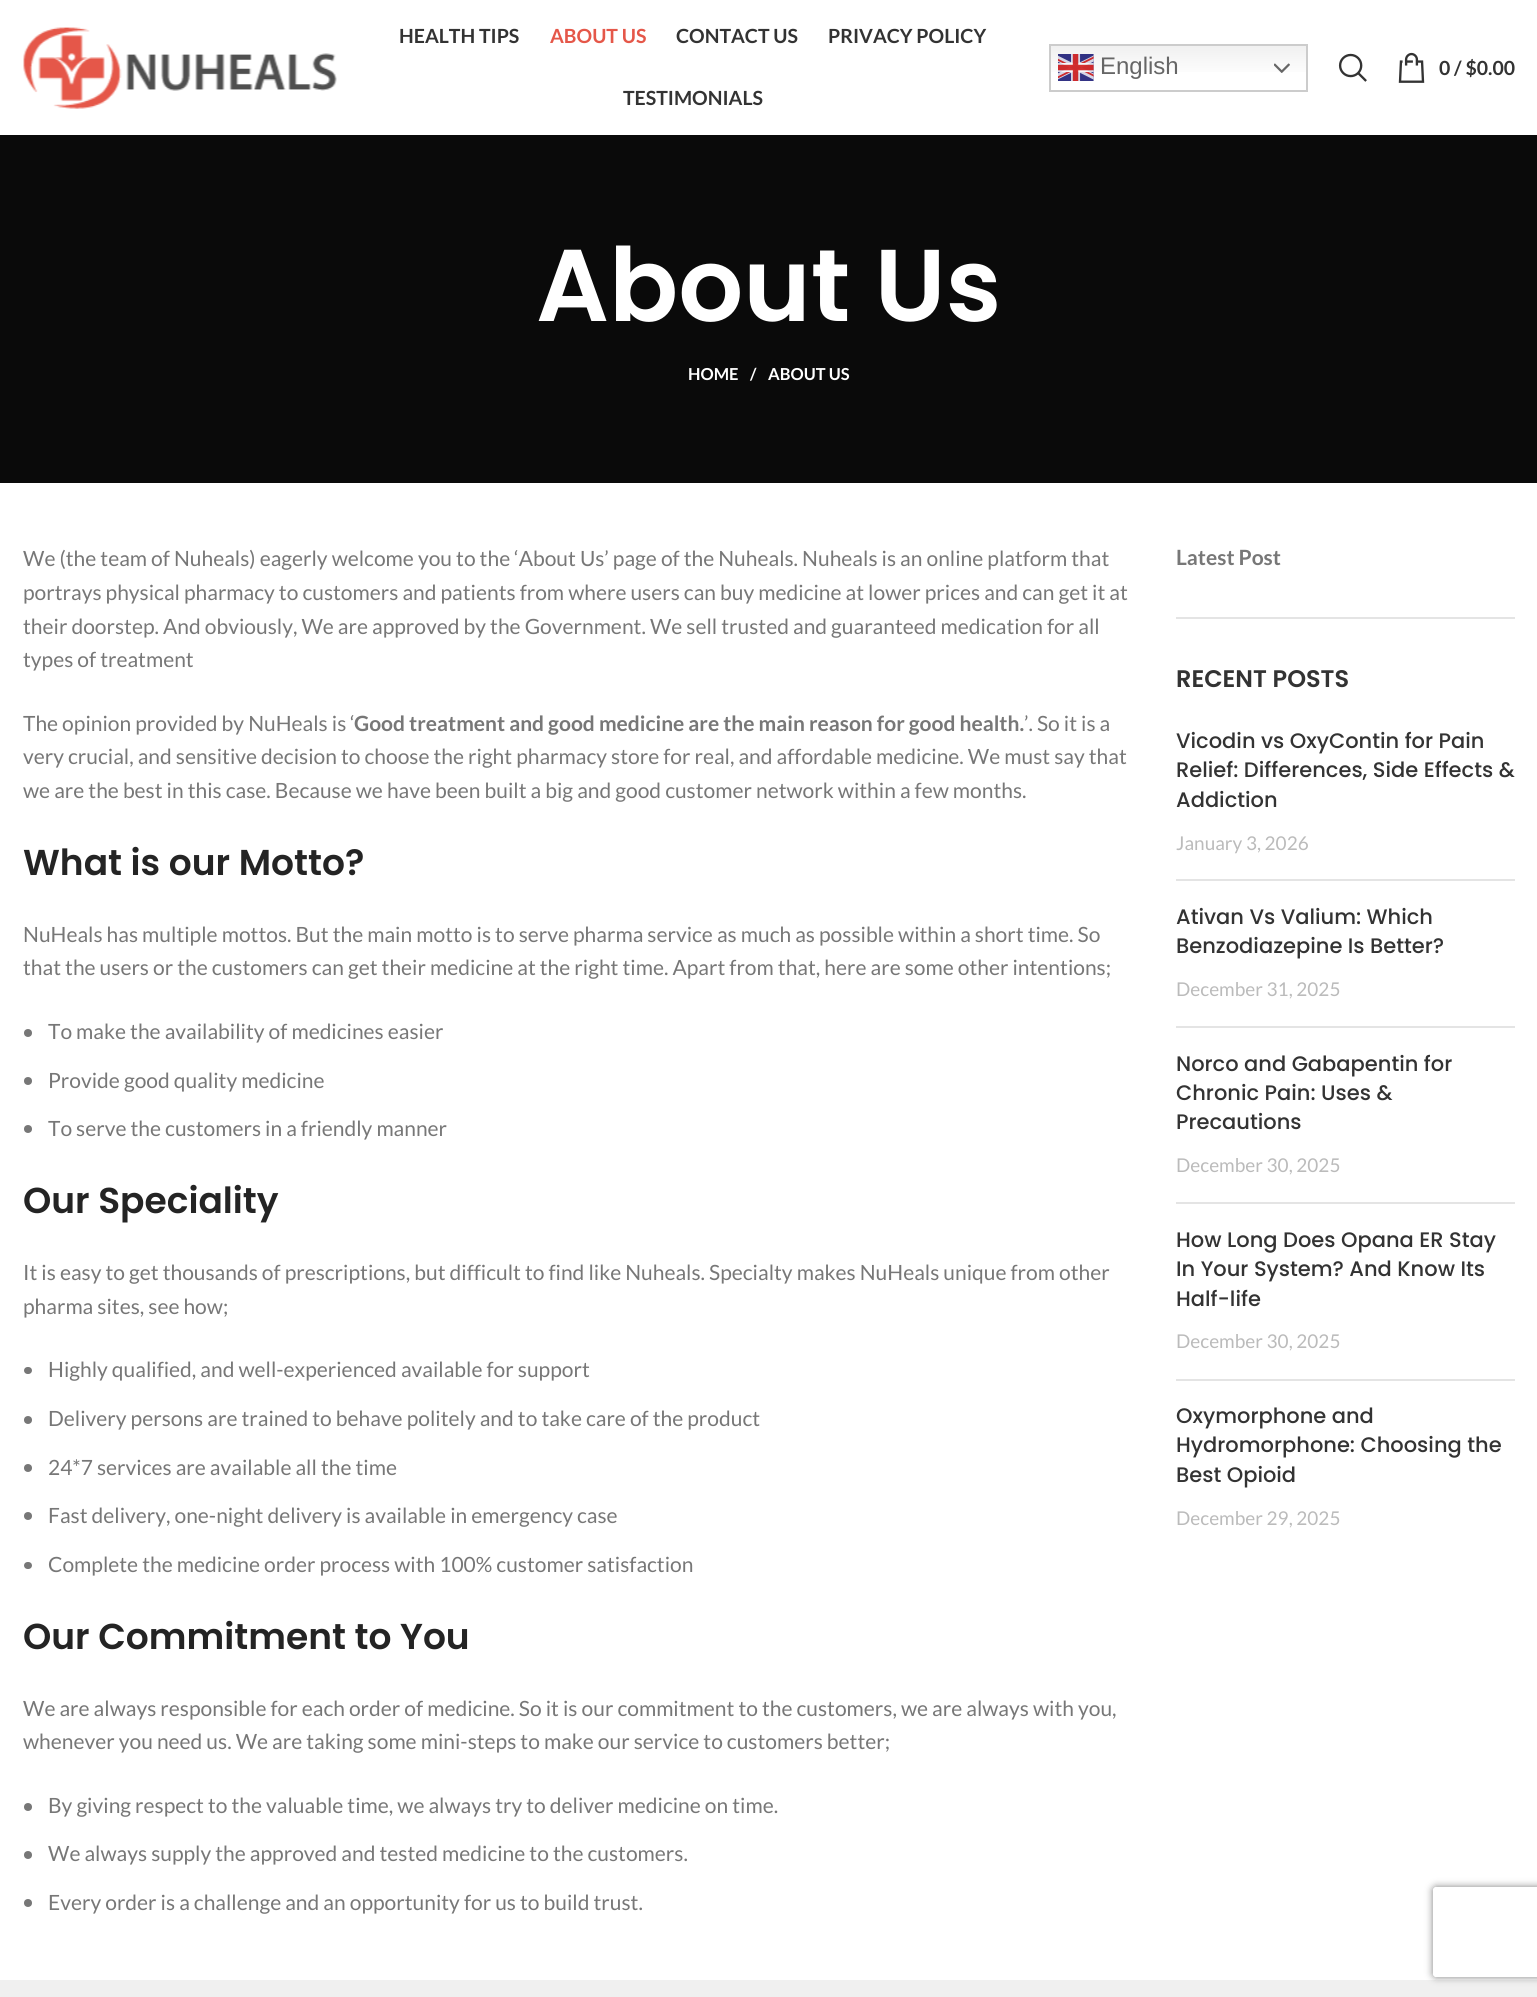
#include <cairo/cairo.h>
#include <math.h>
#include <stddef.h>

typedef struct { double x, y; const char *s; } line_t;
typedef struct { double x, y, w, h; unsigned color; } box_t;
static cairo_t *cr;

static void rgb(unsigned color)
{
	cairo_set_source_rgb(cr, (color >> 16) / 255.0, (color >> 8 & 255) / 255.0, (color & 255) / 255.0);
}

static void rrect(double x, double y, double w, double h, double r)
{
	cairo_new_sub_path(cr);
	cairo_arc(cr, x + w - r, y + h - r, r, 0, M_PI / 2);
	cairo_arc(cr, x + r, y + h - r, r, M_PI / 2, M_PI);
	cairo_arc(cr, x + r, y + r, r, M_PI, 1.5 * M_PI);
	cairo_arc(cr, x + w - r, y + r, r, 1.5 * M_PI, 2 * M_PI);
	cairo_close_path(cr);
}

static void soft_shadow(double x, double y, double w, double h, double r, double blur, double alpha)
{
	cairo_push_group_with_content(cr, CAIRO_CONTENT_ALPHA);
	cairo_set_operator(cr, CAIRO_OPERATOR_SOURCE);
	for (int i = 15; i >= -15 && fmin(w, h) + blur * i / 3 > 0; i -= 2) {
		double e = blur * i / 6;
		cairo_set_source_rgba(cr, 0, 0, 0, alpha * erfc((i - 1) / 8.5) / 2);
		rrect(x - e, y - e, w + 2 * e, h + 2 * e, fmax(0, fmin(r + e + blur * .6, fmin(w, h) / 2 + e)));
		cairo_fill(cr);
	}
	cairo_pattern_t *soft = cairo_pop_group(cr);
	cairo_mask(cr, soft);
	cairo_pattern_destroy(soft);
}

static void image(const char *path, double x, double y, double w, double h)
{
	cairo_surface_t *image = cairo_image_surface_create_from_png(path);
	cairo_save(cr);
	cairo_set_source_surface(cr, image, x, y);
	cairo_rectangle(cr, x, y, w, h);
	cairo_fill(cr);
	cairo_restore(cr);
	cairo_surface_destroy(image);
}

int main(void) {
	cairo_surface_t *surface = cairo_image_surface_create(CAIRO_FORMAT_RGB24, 1537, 1997);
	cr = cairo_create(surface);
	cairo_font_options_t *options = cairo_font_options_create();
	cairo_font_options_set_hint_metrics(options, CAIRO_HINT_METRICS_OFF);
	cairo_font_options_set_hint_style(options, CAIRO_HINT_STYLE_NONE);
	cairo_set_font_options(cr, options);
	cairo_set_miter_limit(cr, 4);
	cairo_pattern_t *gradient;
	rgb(0xffffff);
	cairo_paint(cr);
	image("img/1.png", 23, 27, 314, 82);
	gradient = cairo_pattern_create_linear(1178, 43, 1178, 92);
	cairo_pattern_add_color_stop_rgba(gradient, 0, 0.937, 0.937, 0.937, 1);
	cairo_pattern_add_color_stop_rgba(gradient, 0.7, 1, 1, 1, 1);
	cairo_set_source(cr, gradient);
	cairo_pattern_destroy(gradient);
	cairo_rectangle(cr, 1051, 46, 255, 26);
	cairo_fill(cr);
	cairo_rectangle(cr, 1050, 45, 257, 46);
	rgb(0xcccccc);
	cairo_stroke(cr);
	image("img/2.png", 1058, 54, 36, 27);
	image("img/3.png", 1274, 63, 16, 10);
	image("img/4.png", 1338, 53, 29, 29);
	image("img/5.png", 1398, 52, 27, 31);
	rgb(0x0a0a0a);
	cairo_rectangle(cr, 0, 135, 1537, 348);
	cairo_fill(cr);
	rgb(0x777777);
	cairo_arc(cr, 28, 1033, 4, 0, 2 * M_PI);
	cairo_fill(cr);
	cairo_arc(cr, 28, 1081, 4, 0, 2 * M_PI);
	cairo_fill(cr);
	cairo_arc(cr, 28, 1129, 4, 0, 2 * M_PI);
	cairo_fill(cr);
	rrect(24, 1367, 8, 7, 3.5);
	cairo_fill(cr);
	cairo_arc(cr, 28, 1420, 4, 0, 2 * M_PI);
	cairo_fill(cr);
	cairo_arc(cr, 28, 1468, 4, 0, 2 * M_PI);
	cairo_fill(cr);
	cairo_arc(cr, 28, 1516, 4, 0, 2 * M_PI);
	cairo_fill(cr);
	rrect(24, 1562, 8, 7, 3.5);
	cairo_fill(cr);
	cairo_arc(cr, 28, 1807, 4, 0, 2 * M_PI);
	cairo_fill(cr);
	cairo_arc(cr, 28, 1855, 4, 0, 2 * M_PI);
	cairo_fill(cr);
	cairo_arc(cr, 28, 1903, 4, 0, 2 * M_PI);
	cairo_fill(cr);
	{
		static const box_t items[] = {
			{1176, 617, 339, 2, 0xe4e4e4},
			{1176, 879, 339, 2, 0xe4e4e4},
			{1176, 1026, 339, 2, 0xe4e4e4},
			{1176, 1202, 339, 2, 0xe4e4e4},
			{1176, 1379, 339, 2, 0xe4e4e4},
			{0, 1980, 1537, 17, 0xf0f0f0},
		};
		for (size_t i = 0; i < sizeof items / sizeof *items; i++) {
			rgb(items[i].color);
			cairo_rectangle(cr, items[i].x, items[i].y, items[i].w, items[i].h);
			cairo_fill(cr);
		}
	}
	cairo_save(cr);
	cairo_set_fill_rule(cr, CAIRO_FILL_RULE_EVEN_ODD);
	cairo_new_path(cr);
	cairo_move_to(cr, 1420, 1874);
	cairo_line_to(cr, 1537, 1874);
	cairo_line_to(cr, 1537, 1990);
	cairo_line_to(cr, 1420, 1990);
	cairo_close_path(cr);
	cairo_move_to(cr, 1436, 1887);
	cairo_line_to(cr, 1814, 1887);
	cairo_curve_to(cr, 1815.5, 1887, 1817, 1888.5, 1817, 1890);
	cairo_line_to(cr, 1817, 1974);
	cairo_curve_to(cr, 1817, 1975.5, 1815.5, 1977, 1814, 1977);
	cairo_line_to(cr, 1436, 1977);
	cairo_curve_to(cr, 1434.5, 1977, 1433, 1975.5, 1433, 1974);
	cairo_line_to(cr, 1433, 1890);
	cairo_curve_to(cr, 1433, 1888.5, 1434.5, 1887, 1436, 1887);
	cairo_close_path(cr);
	cairo_clip(cr);
	rgb(0x808080);
	soft_shadow(1433, 1887, 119, 90, 3, 4, 1);
	cairo_restore(cr);
	cairo_select_font_face(cr, "Lato", CAIRO_FONT_SLANT_NORMAL, CAIRO_FONT_WEIGHT_BOLD);
	cairo_set_font_size(cr, 19.5);
	rgb(0x333333);
	cairo_move_to(cr, 399, 43);
	cairo_show_text(cr, "HEALTH TIPS");
	rgb(0xe55749);
	cairo_move_to(cr, 550, 43);
	cairo_show_text(cr, "ABOUT US");
	rgb(0x333333);
	{
		static const line_t items[] = {
			{676, 43, "CONTACT US"},
			{828, 43, "PRIVACY POLICY"},
			{623, 105, "TESTIMONIALS"},
		};
		for (size_t i = 0; i < sizeof items / sizeof *items; i++) {
			cairo_move_to(cr, items[i].x, items[i].y);
			cairo_show_text(cr, items[i].s);
		}
	}
	cairo_select_font_face(cr, "Liberation Sans", CAIRO_FONT_SLANT_NORMAL, CAIRO_FONT_WEIGHT_NORMAL);
	cairo_set_font_size(cr, 24);
	rgb(0x666666);
	cairo_move_to(cr, 1100, 74);
	cairo_show_text(cr, "English");
	cairo_select_font_face(cr, "Lato", CAIRO_FONT_SLANT_NORMAL, CAIRO_FONT_WEIGHT_BOLD);
	cairo_set_font_size(cr, 19.5);
	rgb(0x333333);
	cairo_move_to(cr, 1439, 75);
	cairo_show_text(cr, "0 / $0.00");
	cairo_select_font_face(cr, "Poppins SemiBold", CAIRO_FONT_SLANT_NORMAL, CAIRO_FONT_WEIGHT_NORMAL);
	cairo_set_font_size(cr, 102);
	rgb(0xffffff);
	cairo_move_to(cr, 536, 321);
	cairo_show_text(cr, "About Us");
	cairo_select_font_face(cr, "Lato", CAIRO_FONT_SLANT_NORMAL, CAIRO_FONT_WEIGHT_BOLD);
	cairo_set_font_size(cr, 16.5);
	{
		static const line_t items[] = {
			{688, 380, "HOME"},
			{750, 380, "/"},
			{768, 380, "ABOUT US"},
		};
		for (size_t i = 0; i < sizeof items / sizeof *items; i++) {
			cairo_move_to(cr, items[i].x, items[i].y);
			cairo_show_text(cr, items[i].s);
		}
	}
	cairo_select_font_face(cr, "Lato", CAIRO_FONT_SLANT_NORMAL, CAIRO_FONT_WEIGHT_NORMAL);
	cairo_set_font_size(cr, 21);
	rgb(0x777777);
	{
		static const line_t items[] = {
			{23, 566, "We (the team of Nuheals) eagerly welcome you to the ‘About Us’ page of the Nuheals. Nuheals is an online platform that"},
			{23, 600, "portrays physical pharmacy to customers and patients from where users can buy medicine at lower prices and can get it at"},
			{23, 634, "their doorstep. And obviously, We are approved by the Government. We sell trusted and guaranteed medication for all"},
			{23, 667, "types of treatment"},
			{23, 731, "The opinion provided by NuHeals is ‘"},
		};
		for (size_t i = 0; i < sizeof items / sizeof *items; i++) {
			cairo_move_to(cr, items[i].x, items[i].y);
			cairo_show_text(cr, items[i].s);
		}
	}
	cairo_select_font_face(cr, "Lato", CAIRO_FONT_SLANT_NORMAL, CAIRO_FONT_WEIGHT_BOLD);
	cairo_move_to(cr, 354, 731);
	cairo_show_text(cr, "Good treatment and good medicine are the main reason for good health.");
	cairo_select_font_face(cr, "Lato", CAIRO_FONT_SLANT_NORMAL, CAIRO_FONT_WEIGHT_NORMAL);
	{
		static const line_t items[] = {
			{1024, 731, "’. So it is a"},
			{23, 764, "very crucial, and sensitive decision to choose the right pharmacy store for real, and affordable medicine. We must say that"},
			{23, 798, "we are the best in this case. Because we have been built a big and good customer network within a few months."},
		};
		for (size_t i = 0; i < sizeof items / sizeof *items; i++) {
			cairo_move_to(cr, items[i].x, items[i].y);
			cairo_show_text(cr, items[i].s);
		}
	}
	cairo_select_font_face(cr, "Poppins SemiBold", CAIRO_FONT_SLANT_NORMAL, CAIRO_FONT_WEIGHT_NORMAL);
	cairo_set_font_size(cr, 36);
	rgb(0x242424);
	cairo_move_to(cr, 23, 875);
	cairo_show_text(cr, "What is our Motto?");
	cairo_select_font_face(cr, "Lato", CAIRO_FONT_SLANT_NORMAL, CAIRO_FONT_WEIGHT_NORMAL);
	cairo_set_font_size(cr, 21);
	rgb(0x777777);
	{
		static const line_t items[] = {
			{23, 942, "NuHeals has multiple mottos. But the main motto is to serve pharma service as much as possible within a short time. So"},
			{23, 975, "that the users or the customers can get their medicine at the right time. Apart from that, here are some other intentions;"},
			{48, 1039, "To make the availability of medicines easier"},
			{48, 1088, "Provide good quality medicine"},
			{48, 1136, "To serve the customers in a friendly manner"},
		};
		for (size_t i = 0; i < sizeof items / sizeof *items; i++) {
			cairo_move_to(cr, items[i].x, items[i].y);
			cairo_show_text(cr, items[i].s);
		}
	}
	cairo_select_font_face(cr, "Poppins SemiBold", CAIRO_FONT_SLANT_NORMAL, CAIRO_FONT_WEIGHT_NORMAL);
	cairo_set_font_size(cr, 36);
	rgb(0x242424);
	cairo_move_to(cr, 23, 1213);
	cairo_show_text(cr, "Our Speciality");
	cairo_select_font_face(cr, "Lato", CAIRO_FONT_SLANT_NORMAL, CAIRO_FONT_WEIGHT_NORMAL);
	cairo_set_font_size(cr, 21);
	rgb(0x777777);
	{
		static const line_t items[] = {
			{23, 1280, "It is easy to get thousands of prescriptions, but difficult to find like Nuheals. Specialty makes NuHeals unique from other"},
			{23, 1314, "pharma sites, see how;"},
			{48, 1377, "Highly qualified, and well-experienced available for support"},
			{48, 1426, "Delivery persons are trained to behave politely and to take care of the product"},
			{48, 1475, "24*7 services are available all the time"},
			{48, 1523, "Fast delivery, one-night delivery is available in emergency case"},
			{48, 1572, "Complete the medicine order process with 100% customer satisfaction"},
		};
		for (size_t i = 0; i < sizeof items / sizeof *items; i++) {
			cairo_move_to(cr, items[i].x, items[i].y);
			cairo_show_text(cr, items[i].s);
		}
	}
	cairo_select_font_face(cr, "Poppins SemiBold", CAIRO_FONT_SLANT_NORMAL, CAIRO_FONT_WEIGHT_NORMAL);
	cairo_set_font_size(cr, 36);
	rgb(0x242424);
	cairo_move_to(cr, 23, 1649);
	cairo_show_text(cr, "Our Commitment to You");
	cairo_select_font_face(cr, "Lato", CAIRO_FONT_SLANT_NORMAL, CAIRO_FONT_WEIGHT_NORMAL);
	cairo_set_font_size(cr, 21);
	rgb(0x777777);
	{
		static const line_t items[] = {
			{23, 1716, "We are always responsible for each order of medicine. So it is our commitment to the customers, we are always with you,"},
			{23, 1749, "whenever you need us. We are taking some mini-steps to make our service to customers better;"},
			{48, 1813, "By giving respect to the valuable time, we always try to deliver medicine on time."},
			{48, 1861, "We always supply the approved and tested medicine to the customers."},
			{48, 1910, "Every order is a challenge and an opportunity for us to build trust."},
		};
		for (size_t i = 0; i < sizeof items / sizeof *items; i++) {
			cairo_move_to(cr, items[i].x, items[i].y);
			cairo_show_text(cr, items[i].s);
		}
	}
	cairo_select_font_face(cr, "Lato", CAIRO_FONT_SLANT_NORMAL, CAIRO_FONT_WEIGHT_BOLD);
	cairo_move_to(cr, 1176, 565);
	cairo_show_text(cr, "Latest Post");
	cairo_select_font_face(cr, "Poppins SemiBold", CAIRO_FONT_SLANT_NORMAL, CAIRO_FONT_WEIGHT_NORMAL);
	cairo_set_font_size(cr, 24);
	rgb(0x333333);
	cairo_move_to(cr, 1176, 687);
	cairo_show_text(cr, "RECENT POSTS");
	cairo_select_font_face(cr, "Poppins Medium", CAIRO_FONT_SLANT_NORMAL, CAIRO_FONT_WEIGHT_NORMAL);
	cairo_set_font_size(cr, 21);
	{
		static const line_t items[] = {
			{1176, 748, "Vicodin vs OxyContin for Pain"},
			{1176, 777, "Relief: Differences, Side Effects &"},
			{1176, 807, "Addiction"},
		};
		for (size_t i = 0; i < sizeof items / sizeof *items; i++) {
			cairo_move_to(cr, items[i].x, items[i].y);
			cairo_show_text(cr, items[i].s);
		}
	}
	cairo_select_font_face(cr, "Lato", CAIRO_FONT_SLANT_NORMAL, CAIRO_FONT_WEIGHT_NORMAL);
	cairo_set_font_size(cr, 19);
	rgb(0xbbbbbb);
	cairo_move_to(cr, 1176, 850);
	cairo_show_text(cr, "January 3, 2026");
	cairo_select_font_face(cr, "Poppins Medium", CAIRO_FONT_SLANT_NORMAL, CAIRO_FONT_WEIGHT_NORMAL);
	cairo_set_font_size(cr, 21);
	rgb(0x333333);
	cairo_move_to(cr, 1176, 924);
	cairo_show_text(cr, "Ativan Vs Valium: Which");
	cairo_move_to(cr, 1176, 953);
	cairo_show_text(cr, "Benzodiazepine Is Better?");
	cairo_select_font_face(cr, "Lato", CAIRO_FONT_SLANT_NORMAL, CAIRO_FONT_WEIGHT_NORMAL);
	cairo_set_font_size(cr, 19);
	rgb(0xbbbbbb);
	cairo_move_to(cr, 1176, 996);
	cairo_show_text(cr, "December 31, 2025");
	cairo_select_font_face(cr, "Poppins Medium", CAIRO_FONT_SLANT_NORMAL, CAIRO_FONT_WEIGHT_NORMAL);
	cairo_set_font_size(cr, 21);
	rgb(0x333333);
	{
		static const line_t items[] = {
			{1176, 1071, "Norco and Gabapentin for"},
			{1176, 1100, "Chronic Pain: Uses &"},
			{1176, 1129, "Precautions"},
		};
		for (size_t i = 0; i < sizeof items / sizeof *items; i++) {
			cairo_move_to(cr, items[i].x, items[i].y);
			cairo_show_text(cr, items[i].s);
		}
	}
	cairo_select_font_face(cr, "Lato", CAIRO_FONT_SLANT_NORMAL, CAIRO_FONT_WEIGHT_NORMAL);
	cairo_set_font_size(cr, 19);
	rgb(0xbbbbbb);
	cairo_move_to(cr, 1176, 1172);
	cairo_show_text(cr, "December 30, 2025");
	cairo_select_font_face(cr, "Poppins Medium", CAIRO_FONT_SLANT_NORMAL, CAIRO_FONT_WEIGHT_NORMAL);
	cairo_set_font_size(cr, 21);
	rgb(0x333333);
	{
		static const line_t items[] = {
			{1176, 1247, "How Long Does Opana ER Stay"},
			{1176, 1276, "In Your System? And Know Its"},
			{1176, 1306, "Half-life"},
		};
		for (size_t i = 0; i < sizeof items / sizeof *items; i++) {
			cairo_move_to(cr, items[i].x, items[i].y);
			cairo_show_text(cr, items[i].s);
		}
	}
	cairo_select_font_face(cr, "Lato", CAIRO_FONT_SLANT_NORMAL, CAIRO_FONT_WEIGHT_NORMAL);
	cairo_set_font_size(cr, 19);
	rgb(0xbbbbbb);
	cairo_move_to(cr, 1176, 1348);
	cairo_show_text(cr, "December 30, 2025");
	cairo_select_font_face(cr, "Poppins Medium", CAIRO_FONT_SLANT_NORMAL, CAIRO_FONT_WEIGHT_NORMAL);
	cairo_set_font_size(cr, 21);
	rgb(0x333333);
	{
		static const line_t items[] = {
			{1176, 1423, "Oxymorphone and"},
			{1176, 1452, "Hydromorphone: Choosing the"},
			{1176, 1482, "Best Opioid"},
		};
		for (size_t i = 0; i < sizeof items / sizeof *items; i++) {
			cairo_move_to(cr, items[i].x, items[i].y);
			cairo_show_text(cr, items[i].s);
		}
	}
	cairo_select_font_face(cr, "Lato", CAIRO_FONT_SLANT_NORMAL, CAIRO_FONT_WEIGHT_NORMAL);
	cairo_set_font_size(cr, 19);
	rgb(0xbbbbbb);
	cairo_move_to(cr, 1176, 1525);
	cairo_show_text(cr, "December 29, 2025");
	cairo_surface_write_to_png(surface, "page.png");
	cairo_font_options_destroy(options);
	cairo_destroy(cr);
	cairo_surface_destroy(surface);
	return 0;
}
